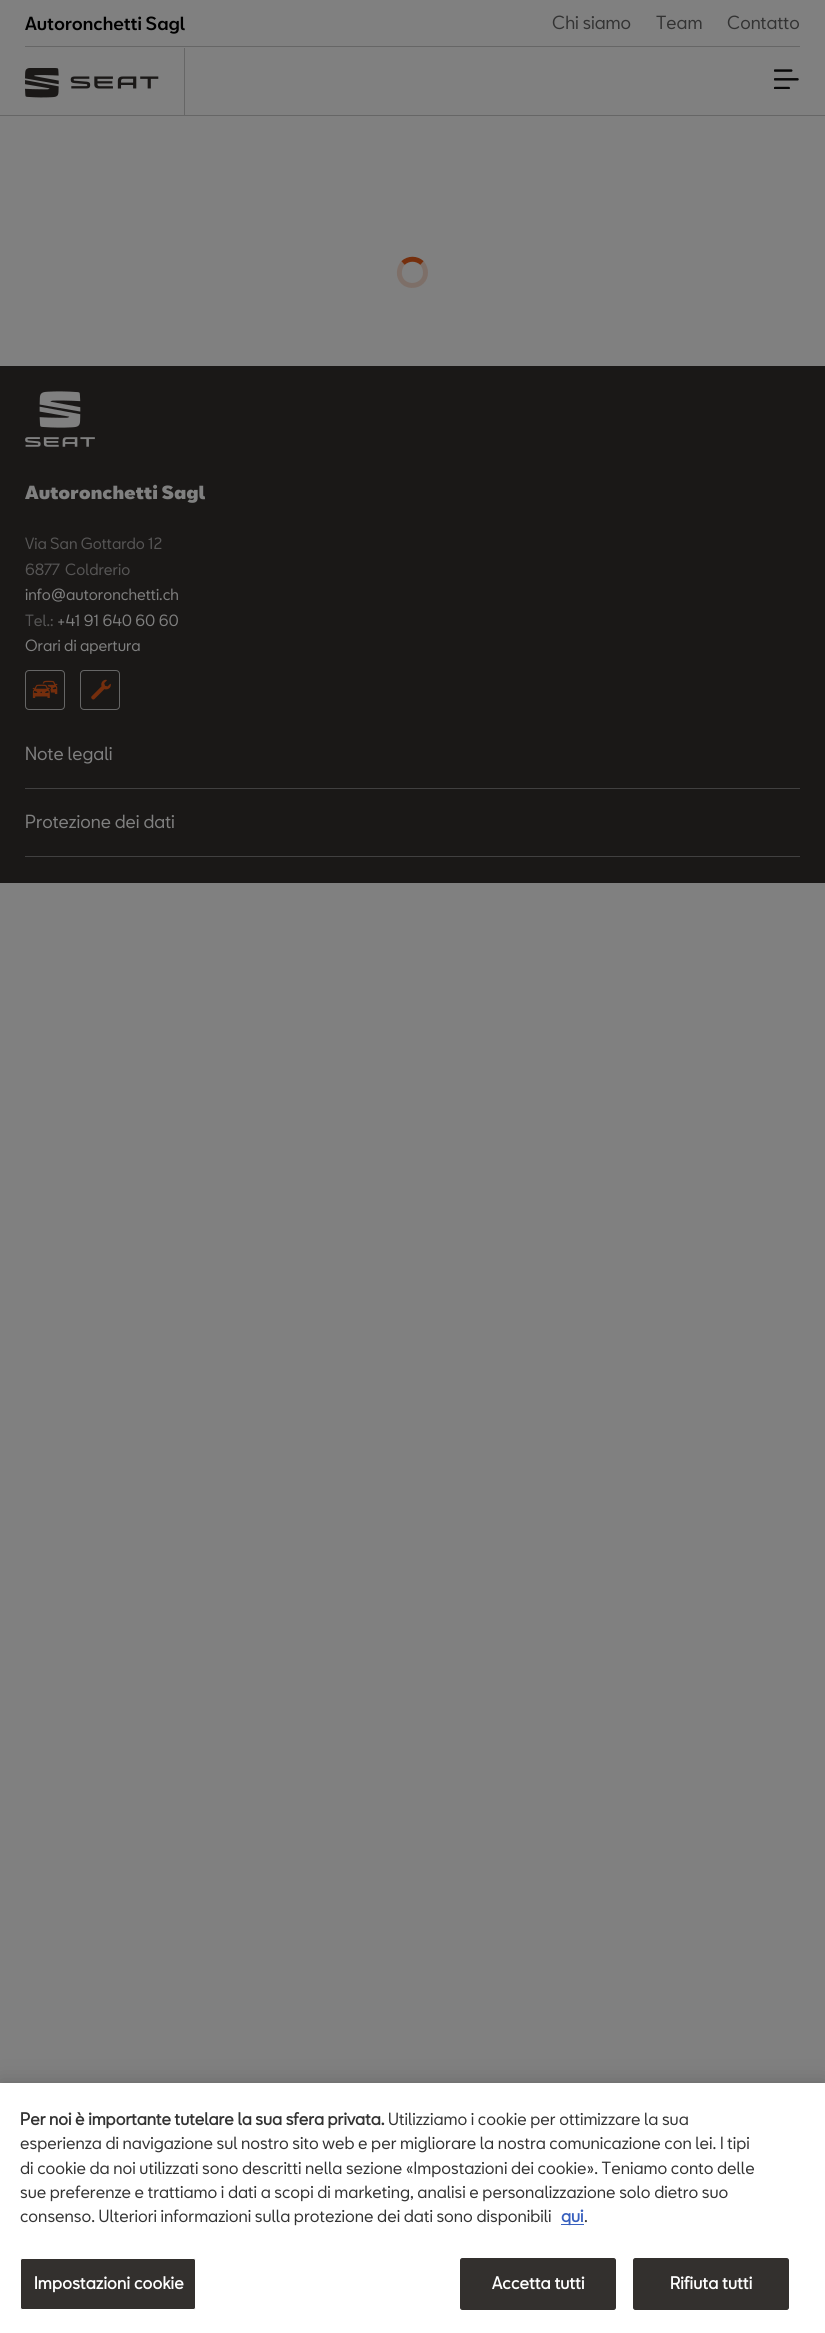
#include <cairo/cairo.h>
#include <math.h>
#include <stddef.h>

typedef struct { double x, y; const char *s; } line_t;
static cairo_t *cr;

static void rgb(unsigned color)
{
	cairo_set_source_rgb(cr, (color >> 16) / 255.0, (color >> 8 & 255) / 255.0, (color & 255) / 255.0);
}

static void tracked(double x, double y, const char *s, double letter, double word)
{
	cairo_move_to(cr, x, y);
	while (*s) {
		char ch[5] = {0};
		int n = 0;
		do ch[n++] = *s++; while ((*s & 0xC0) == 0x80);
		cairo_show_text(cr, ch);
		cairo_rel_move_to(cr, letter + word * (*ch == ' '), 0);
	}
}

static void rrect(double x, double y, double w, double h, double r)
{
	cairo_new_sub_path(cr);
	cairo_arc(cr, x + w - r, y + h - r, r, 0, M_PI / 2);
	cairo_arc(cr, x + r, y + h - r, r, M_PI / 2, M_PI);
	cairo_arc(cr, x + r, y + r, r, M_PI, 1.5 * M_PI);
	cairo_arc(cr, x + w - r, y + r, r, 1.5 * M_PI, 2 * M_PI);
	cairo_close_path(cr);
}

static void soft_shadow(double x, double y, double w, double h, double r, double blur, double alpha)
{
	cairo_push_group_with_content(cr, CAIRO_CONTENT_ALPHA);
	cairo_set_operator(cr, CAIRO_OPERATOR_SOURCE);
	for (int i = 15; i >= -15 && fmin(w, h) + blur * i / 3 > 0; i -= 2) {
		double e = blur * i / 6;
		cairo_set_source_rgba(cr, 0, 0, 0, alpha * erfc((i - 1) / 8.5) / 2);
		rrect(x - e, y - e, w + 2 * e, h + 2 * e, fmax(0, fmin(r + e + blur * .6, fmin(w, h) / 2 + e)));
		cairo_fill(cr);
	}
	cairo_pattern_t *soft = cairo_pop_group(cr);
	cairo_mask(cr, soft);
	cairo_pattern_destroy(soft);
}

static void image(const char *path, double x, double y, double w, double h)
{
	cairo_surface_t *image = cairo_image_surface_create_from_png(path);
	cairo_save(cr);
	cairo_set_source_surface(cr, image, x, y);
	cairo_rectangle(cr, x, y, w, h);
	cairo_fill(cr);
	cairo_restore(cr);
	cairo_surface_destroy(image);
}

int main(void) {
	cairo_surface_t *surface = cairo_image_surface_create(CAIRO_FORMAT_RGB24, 825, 2333);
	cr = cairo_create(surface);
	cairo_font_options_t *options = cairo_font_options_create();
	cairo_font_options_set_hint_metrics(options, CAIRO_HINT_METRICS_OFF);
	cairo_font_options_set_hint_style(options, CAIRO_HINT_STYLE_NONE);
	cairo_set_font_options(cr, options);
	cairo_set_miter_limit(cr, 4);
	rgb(0x808080);
	cairo_paint(cr);
	rgb(0x666666);
	cairo_rectangle(cr, 25, 46, 775, 1);
	cairo_fill(cr);
	cairo_rectangle(cr, 184, 48, 1, 67);
	cairo_fill(cr);
	image("img/1.png", 25, 68, 134, 30);
	image("img/2.png", 774, 69, 25, 20);
	cairo_rectangle(cr, 0, 115, 825, 1);
	cairo_fill(cr);
	cairo_new_path(cr);
	cairo_move_to(cr, 403, 263);
	cairo_curve_to(cr, 408.5, 258, 416.5, 258, 422, 263);
	rgb(0x752f0d);
	cairo_set_line_width(cr, 5);
	cairo_stroke(cr);
	cairo_new_path(cr);
	cairo_move_to(cr, 422, 263);
	cairo_curve_to(cr, 424, 265.5, 425.5, 269, 425.5, 272.5);
	cairo_curve_to(cr, 425.5, 288, 402.5, 290.5, 399.5, 275);
	cairo_curve_to(cr, 399, 271, 400, 266.5, 403, 263);
	cairo_set_source_rgba(cr, 0.459, 0.184, 0.051, 0.2);
	cairo_stroke(cr);
	rgb(0x1a1817);
	cairo_rectangle(cr, 0, 366, 825, 517);
	cairo_fill(cr);
	image("img/3.png", 25, 391, 70, 56);
	rrect(25.5, 670.5, 39, 39, 3.5);
	rgb(0x666666);
	cairo_set_line_width(cr, 1);
	cairo_stroke(cr);
	image("img/4.png", 32, 680, 26, 18);
	rrect(80.5, 670.5, 39, 39, 3.5);
	cairo_stroke(cr);
	image("img/5.png", 91, 679, 20, 21);
	rgb(0x414040);
	cairo_rectangle(cr, 25, 788, 775, 1);
	cairo_fill(cr);
	cairo_rectangle(cr, 25, 856, 775, 1);
	cairo_fill(cr);
	rgb(0x000000);
	soft_shadow(0, 2083, 825, 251, 0, 11, 0.2);
	rgb(0xffffff);
	cairo_rectangle(cr, 0, 2083, 825, 250);
	cairo_fill(cr);
	rgb(0x3860be);
	cairo_rectangle(cr, 561, 2224, 23, 1);
	cairo_fill(cr);
	rgb(0x33302e);
	rrect(20.5, 2258.5, 175, 51, 2);
	cairo_fill_preserve(cr);
	rgb(0xffffff);
	cairo_stroke(cr);
	rgb(0x33302e);
	rrect(460.5, 2258.5, 155, 51, 2);
	cairo_fill_preserve(cr);
	cairo_stroke(cr);
	rrect(633.5, 2258.5, 155, 51, 2);
	cairo_fill_preserve(cr);
	cairo_stroke(cr);
	cairo_select_font_face(cr, "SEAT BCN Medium", CAIRO_FONT_SLANT_NORMAL, CAIRO_FONT_WEIGHT_NORMAL);
	cairo_set_font_size(cr, 17.5);
	rgb(0x000000);
	cairo_move_to(cr, 25, 30);
	cairo_show_text(cr, "Autoronchetti Sagl");
	cairo_select_font_face(cr, "SEAT BCN", CAIRO_FONT_SLANT_NORMAL, CAIRO_FONT_WEIGHT_NORMAL);
	rgb(0x333333);
	{
		static const line_t items[] = {
			{552, 29, "Chi siamo"},
			{656, 29, "Team"},
			{727, 29, "Contatto"},
		};
		for (size_t i = 0; i < sizeof items / sizeof *items; i++) {
			cairo_move_to(cr, items[i].x, items[i].y);
			cairo_show_text(cr, items[i].s);
		}
	}
	cairo_select_font_face(cr, "SEAT BCN Black", CAIRO_FONT_SLANT_NORMAL, CAIRO_FONT_WEIGHT_NORMAL);
	rgb(0x808080);
	cairo_move_to(cr, 25, 499);
	cairo_show_text(cr, "Autoronchetti Sagl");
	cairo_select_font_face(cr, "SEAT BCN", CAIRO_FONT_SLANT_NORMAL, CAIRO_FONT_WEIGHT_NORMAL);
	cairo_set_font_size(cr, 15);
	rgb(0x575656);
	{
		static const line_t items[] = {
			{25, 549, "Via San Gottardo 12"},
			{25, 575, "6877"},
			{65, 575, "Coldrerio"},
		};
		for (size_t i = 0; i < sizeof items / sizeof *items; i++) {
			cairo_move_to(cr, items[i].x, items[i].y);
			cairo_show_text(cr, items[i].s);
		}
	}
	rgb(0x808080);
	cairo_move_to(cr, 25, 600);
	cairo_show_text(cr, "info@autoronchetti.ch");
	rgb(0x575656);
	cairo_move_to(cr, 25, 626);
	cairo_show_text(cr, "Tel.:");
	rgb(0x808080);
	cairo_move_to(cr, 57, 626);
	cairo_show_text(cr, "+41 91 640 60 60");
	cairo_move_to(cr, 25, 651);
	cairo_show_text(cr, "Orari di apertura");
	cairo_set_font_size(cr, 17.5);
	cairo_move_to(cr, 25, 760);
	cairo_show_text(cr, "Note legali");
	cairo_move_to(cr, 25, 828);
	cairo_show_text(cr, "Protezione dei dati");
	cairo_select_font_face(cr, "SEAT BCN", CAIRO_FONT_SLANT_NORMAL, CAIRO_FONT_WEIGHT_BOLD);
	cairo_set_font_size(cr, 16.25);
	rgb(0x333333);
	cairo_move_to(cr, 20, 2125);
	cairo_show_text(cr, "Per noi è importante tutelare la sua sfera privata.");
	cairo_select_font_face(cr, "SEAT BCN", CAIRO_FONT_SLANT_NORMAL, CAIRO_FONT_WEIGHT_NORMAL);
	{
		static const line_t items[] = {
			{388, 2125, "Utilizziamo i cookie per ottimizzare la sua"},
			{20, 2149, "esperienza di navigazione sul nostro sito web e per migliorare la nostra comunicazione con lei. I tipi"},
			{20, 2174, "di cookie da noi utilizzati sono descritti nella sezione «Impostazioni dei cookie». Teniamo conto delle"},
			{20, 2198, "sue preferenze e trattiamo i dati a scopi di marketing, analisi e personalizzazione solo dietro suo"},
			{20, 2222, "consenso. Ulteriori informazioni sulla protezione dei dati sono disponibili"},
		};
		for (size_t i = 0; i < sizeof items / sizeof *items; i++) {
			cairo_move_to(cr, items[i].x, items[i].y);
			cairo_show_text(cr, items[i].s);
		}
	}
	cairo_select_font_face(cr, "SEAT BCN", CAIRO_FONT_SLANT_NORMAL, CAIRO_FONT_WEIGHT_BOLD);
	rgb(0x3860be);
	cairo_move_to(cr, 561, 2222);
	cairo_show_text(cr, "qui");
	cairo_select_font_face(cr, "SEAT BCN", CAIRO_FONT_SLANT_NORMAL, CAIRO_FONT_WEIGHT_NORMAL);
	rgb(0x333333);
	cairo_move_to(cr, 584, 2222);
	cairo_show_text(cr, ".");
	cairo_select_font_face(cr, "SEAT BCN", CAIRO_FONT_SLANT_NORMAL, CAIRO_FONT_WEIGHT_BOLD);
	rgb(0xffffff);
	{
		static const line_t items[] = {
			{34, 2289, "Impostazioni cookie"},
			{492, 2289, "Accetta tutti"},
			{670, 2289, "Rifiuta tutti"},
		};
		for (size_t i = 0; i < sizeof items / sizeof *items; i++) {
			tracked(items[i].x, items[i].y, items[i].s, 0.2, 0);
		}
	}
	cairo_surface_write_to_png(surface, "page.png");
	cairo_font_options_destroy(options);
	cairo_destroy(cr);
	cairo_surface_destroy(surface);
	return 0;
}
